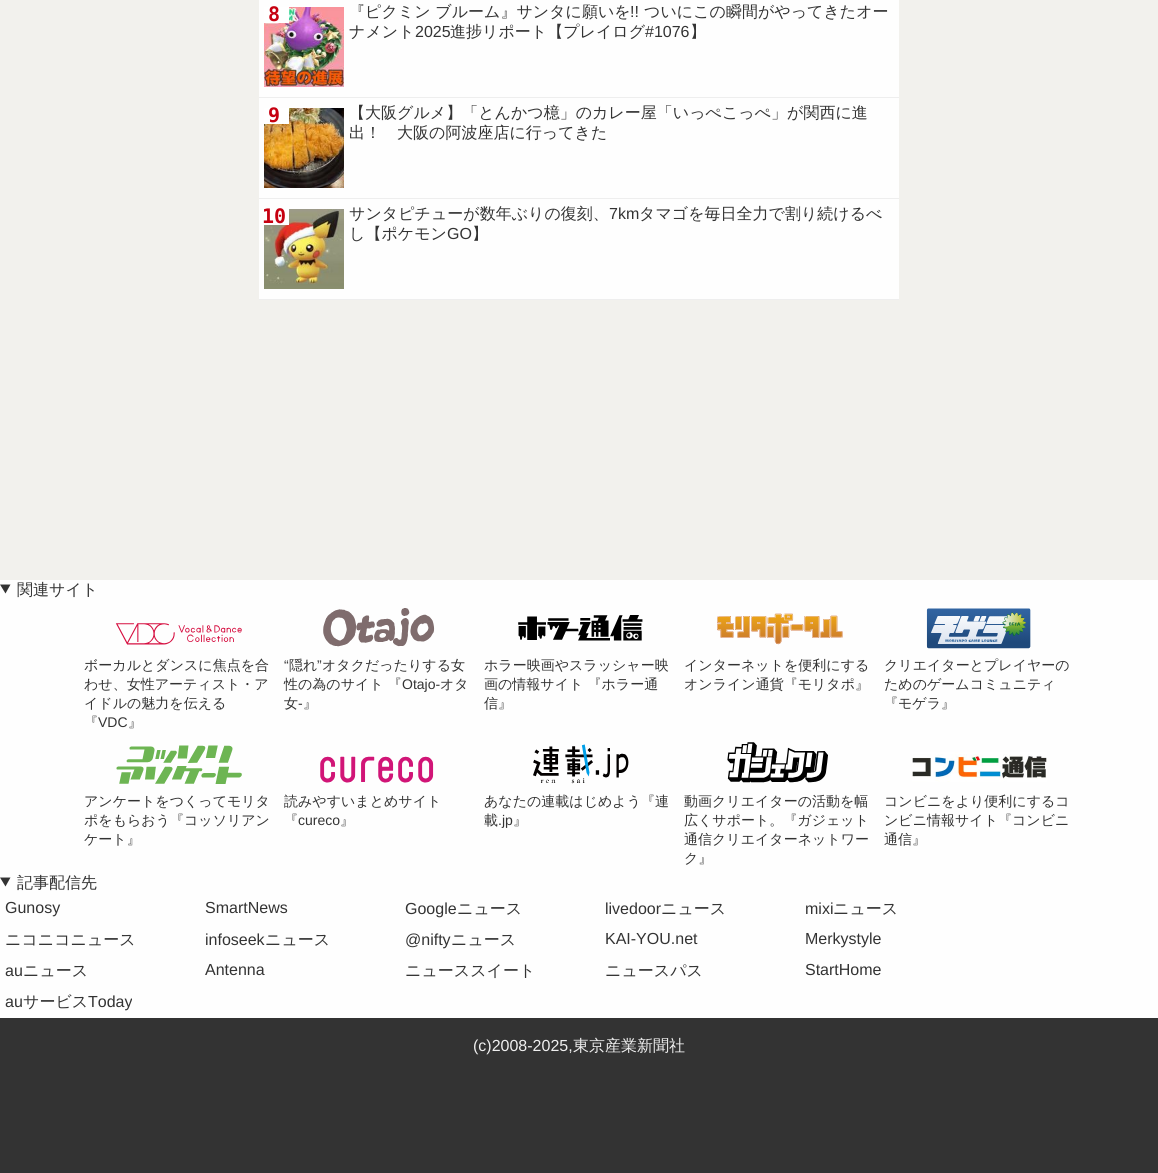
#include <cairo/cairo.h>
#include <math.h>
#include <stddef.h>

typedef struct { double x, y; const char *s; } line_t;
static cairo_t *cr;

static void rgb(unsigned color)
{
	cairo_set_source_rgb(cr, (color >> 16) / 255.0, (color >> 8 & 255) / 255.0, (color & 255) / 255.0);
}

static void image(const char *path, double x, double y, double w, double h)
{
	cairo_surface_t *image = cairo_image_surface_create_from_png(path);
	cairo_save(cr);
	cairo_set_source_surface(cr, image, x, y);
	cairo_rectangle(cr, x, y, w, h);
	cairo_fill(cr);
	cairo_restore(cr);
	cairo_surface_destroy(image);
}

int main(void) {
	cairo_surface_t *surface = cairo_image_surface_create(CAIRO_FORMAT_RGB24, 1158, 1173);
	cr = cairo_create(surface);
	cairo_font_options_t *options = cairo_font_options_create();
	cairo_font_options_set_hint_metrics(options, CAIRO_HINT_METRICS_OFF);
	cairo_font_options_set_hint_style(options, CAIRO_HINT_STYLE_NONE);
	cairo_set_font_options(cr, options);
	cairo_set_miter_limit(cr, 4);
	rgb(0xf2f1ed);
	cairo_paint(cr);
	rgb(0xfefefe);
	cairo_rectangle(cr, 259, 0, 640, 299);
	cairo_fill(cr);
	rgb(0xeeeeee);
	cairo_rectangle(cr, 259, 97, 640, 1);
	cairo_fill(cr);
	image("img/1.png", 264, 7, 80, 80);
	rgb(0xffffff);
	cairo_rectangle(cr, 264, 7, 25, 16);
	cairo_fill(cr);
	rgb(0xeeeeee);
	cairo_rectangle(cr, 259, 198, 640, 1);
	cairo_fill(cr);
	image("img/2.png", 264, 108, 80, 80);
	rgb(0xffffff);
	cairo_rectangle(cr, 264, 108, 25, 16);
	cairo_fill(cr);
	rgb(0xeeeeee);
	cairo_rectangle(cr, 259, 299, 640, 1);
	cairo_fill(cr);
	image("img/3.png", 264, 209, 80, 80);
	rgb(0xffffff);
	cairo_rectangle(cr, 264, 209, 25, 16);
	cairo_fill(cr);
	rgb(0xfefefe);
	cairo_rectangle(cr, 0, 580, 1158, 438);
	cairo_fill(cr);
	rgb(0x333333);
	cairo_new_path(cr);
	cairo_move_to(cr, 0, 584.5);
	cairo_line_to(cr, 10.5, 584.5);
	cairo_line_to(cr, 5.5, 593.5);
	cairo_close_path(cr);
	cairo_fill(cr);
	image("img/4.png", 115, 623, 127, 22);
	image("img/5.png", 323, 608, 112, 39);
	image("img/6.png", 518, 615, 125, 26);
	image("img/7.png", 717, 613, 126, 32);
	image("img/8.png", 926, 608, 105, 41);
	image("img/9.png", 116, 745, 126, 39);
	image("img/10.png", 320, 756, 114, 27);
	image("img/11.png", 533, 744, 96, 40);
	image("img/12.png", 727, 742, 101, 41);
	image("img/13.png", 912, 752, 135, 30);
	cairo_new_path(cr);
	cairo_move_to(cr, 0, 877.5);
	cairo_line_to(cr, 10.5, 877.5);
	cairo_line_to(cr, 5.5, 886.5);
	cairo_close_path(cr);
	cairo_fill(cr);
	cairo_rectangle(cr, 0, 1018, 1158, 155);
	cairo_fill(cr);
	cairo_select_font_face(cr, "DejaVu Sans Mono", CAIRO_FONT_SLANT_NORMAL, CAIRO_FONT_WEIGHT_BOLD);
	cairo_set_font_size(cr, 20);
	rgb(0xc60010);
	cairo_move_to(cr, 268, 21);
	cairo_show_text(cr, "8");
	cairo_select_font_face(cr, "WenQuanYi Zen Hei Medium", CAIRO_FONT_SLANT_NORMAL, CAIRO_FONT_WEIGHT_NORMAL);
	cairo_set_font_size(cr, 16);
	rgb(0x333333);
	cairo_move_to(cr, 349, 17);
	cairo_show_text(cr, "『ピクミン ブルーム』サンタに願いを");
	cairo_select_font_face(cr, "Liberation Sans", CAIRO_FONT_SLANT_NORMAL, CAIRO_FONT_WEIGHT_NORMAL);
	cairo_move_to(cr, 630, 17);
	cairo_show_text(cr, "!!");
	cairo_select_font_face(cr, "WenQuanYi Zen Hei Medium", CAIRO_FONT_SLANT_NORMAL, CAIRO_FONT_WEIGHT_NORMAL);
	cairo_move_to(cr, 644, 17);
	cairo_show_text(cr, "ついにこの瞬間がやってきたオー");
	cairo_move_to(cr, 349, 37);
	cairo_show_text(cr, "ナメント");
	cairo_select_font_face(cr, "Liberation Sans", CAIRO_FONT_SLANT_NORMAL, CAIRO_FONT_WEIGHT_NORMAL);
	cairo_move_to(cr, 415, 37);
	cairo_show_text(cr, "2025");
	cairo_select_font_face(cr, "WenQuanYi Zen Hei Medium", CAIRO_FONT_SLANT_NORMAL, CAIRO_FONT_WEIGHT_NORMAL);
	cairo_move_to(cr, 450, 37);
	cairo_show_text(cr, "進捗リポート【プレイログ");
	cairo_select_font_face(cr, "Liberation Sans", CAIRO_FONT_SLANT_NORMAL, CAIRO_FONT_WEIGHT_NORMAL);
	cairo_move_to(cr, 645, 37);
	cairo_show_text(cr, "#1076");
	cairo_select_font_face(cr, "WenQuanYi Zen Hei Medium", CAIRO_FONT_SLANT_NORMAL, CAIRO_FONT_WEIGHT_NORMAL);
	cairo_move_to(cr, 690, 37);
	cairo_show_text(cr, "】");
	cairo_select_font_face(cr, "DejaVu Sans Mono", CAIRO_FONT_SLANT_NORMAL, CAIRO_FONT_WEIGHT_BOLD);
	cairo_set_font_size(cr, 20);
	rgb(0xc60010);
	cairo_move_to(cr, 268, 122);
	cairo_show_text(cr, "9");
	cairo_select_font_face(cr, "WenQuanYi Zen Hei Medium", CAIRO_FONT_SLANT_NORMAL, CAIRO_FONT_WEIGHT_NORMAL);
	cairo_set_font_size(cr, 16);
	rgb(0x333333);
	cairo_move_to(cr, 349, 118);
	cairo_show_text(cr, "【大阪グルメ】「とんかつ檍」のカレー屋「いっぺこっぺ」が関西に進");
	cairo_move_to(cr, 349, 138);
	cairo_show_text(cr, "出！　大阪の阿波座店に行ってきた");
	cairo_select_font_face(cr, "DejaVu Sans Mono", CAIRO_FONT_SLANT_NORMAL, CAIRO_FONT_WEIGHT_BOLD);
	cairo_set_font_size(cr, 20);
	rgb(0xc60010);
	cairo_move_to(cr, 262, 223);
	cairo_show_text(cr, "10");
	cairo_select_font_face(cr, "WenQuanYi Zen Hei Medium", CAIRO_FONT_SLANT_NORMAL, CAIRO_FONT_WEIGHT_NORMAL);
	cairo_set_font_size(cr, 16);
	rgb(0x333333);
	cairo_move_to(cr, 349, 219);
	cairo_show_text(cr, "サンタピチューが数年ぶりの復刻、");
	cairo_select_font_face(cr, "Liberation Sans", CAIRO_FONT_SLANT_NORMAL, CAIRO_FONT_WEIGHT_NORMAL);
	cairo_move_to(cr, 609, 219);
	cairo_show_text(cr, "7km");
	cairo_select_font_face(cr, "WenQuanYi Zen Hei Medium", CAIRO_FONT_SLANT_NORMAL, CAIRO_FONT_WEIGHT_NORMAL);
	cairo_move_to(cr, 639, 219);
	cairo_show_text(cr, "タマゴを毎日全力で割り続けるべ");
	cairo_move_to(cr, 349, 239);
	cairo_show_text(cr, "し【ポケモン");
	cairo_select_font_face(cr, "Liberation Sans", CAIRO_FONT_SLANT_NORMAL, CAIRO_FONT_WEIGHT_NORMAL);
	cairo_move_to(cr, 447, 239);
	cairo_show_text(cr, "GO");
	cairo_select_font_face(cr, "WenQuanYi Zen Hei Medium", CAIRO_FONT_SLANT_NORMAL, CAIRO_FONT_WEIGHT_NORMAL);
	cairo_move_to(cr, 472, 239);
	cairo_show_text(cr, "】");
	cairo_move_to(cr, 17, 595);
	cairo_show_text(cr, "関連サイト");
	cairo_set_font_size(cr, 14);
	{
		static const line_t items[] = {
			{84, 670, "ボーカルとダンスに焦点を合"},
			{84, 689, "わせ、女性アーティスト・ア"},
			{84, 708, "イドルの魅力を伝える"},
			{84, 727, "『"},
		};
		for (size_t i = 0; i < sizeof items / sizeof *items; i++) {
			cairo_move_to(cr, items[i].x, items[i].y);
			cairo_show_text(cr, items[i].s);
		}
	}
	cairo_select_font_face(cr, "Liberation Sans", CAIRO_FONT_SLANT_NORMAL, CAIRO_FONT_WEIGHT_NORMAL);
	cairo_move_to(cr, 98, 727);
	cairo_show_text(cr, "VDC");
	cairo_select_font_face(cr, "WenQuanYi Zen Hei Medium", CAIRO_FONT_SLANT_NORMAL, CAIRO_FONT_WEIGHT_NORMAL);
	cairo_move_to(cr, 128, 727);
	cairo_show_text(cr, "』");
	cairo_select_font_face(cr, "Liberation Sans", CAIRO_FONT_SLANT_NORMAL, CAIRO_FONT_WEIGHT_NORMAL);
	cairo_move_to(cr, 284, 670);
	cairo_show_text(cr, "“");
	cairo_select_font_face(cr, "WenQuanYi Zen Hei Medium", CAIRO_FONT_SLANT_NORMAL, CAIRO_FONT_WEIGHT_NORMAL);
	cairo_move_to(cr, 289, 670);
	cairo_show_text(cr, "隠れ");
	cairo_select_font_face(cr, "Liberation Sans", CAIRO_FONT_SLANT_NORMAL, CAIRO_FONT_WEIGHT_NORMAL);
	cairo_move_to(cr, 317, 670);
	cairo_show_text(cr, "”");
	cairo_select_font_face(cr, "WenQuanYi Zen Hei Medium", CAIRO_FONT_SLANT_NORMAL, CAIRO_FONT_WEIGHT_NORMAL);
	cairo_move_to(cr, 322, 670);
	cairo_show_text(cr, "オタクだったりする女");
	cairo_move_to(cr, 284, 689);
	cairo_show_text(cr, "性の為のサイト 『");
	cairo_select_font_face(cr, "Liberation Sans", CAIRO_FONT_SLANT_NORMAL, CAIRO_FONT_WEIGHT_NORMAL);
	cairo_move_to(cr, 402, 689);
	cairo_show_text(cr, "Otajo-");
	cairo_select_font_face(cr, "WenQuanYi Zen Hei Medium", CAIRO_FONT_SLANT_NORMAL, CAIRO_FONT_WEIGHT_NORMAL);
	cairo_move_to(cr, 440, 689);
	cairo_show_text(cr, "オタ");
	cairo_move_to(cr, 284, 708);
	cairo_show_text(cr, "女");
	cairo_select_font_face(cr, "Liberation Sans", CAIRO_FONT_SLANT_NORMAL, CAIRO_FONT_WEIGHT_NORMAL);
	cairo_move_to(cr, 298, 708);
	cairo_show_text(cr, "-");
	cairo_select_font_face(cr, "WenQuanYi Zen Hei Medium", CAIRO_FONT_SLANT_NORMAL, CAIRO_FONT_WEIGHT_NORMAL);
	{
		static const line_t items[] = {
			{303, 708, "』"},
			{484, 670, "ホラー映画やスラッシャー映"},
			{484, 689, "画の情報サイト 『ホラー通"},
			{484, 708, "信』"},
			{684, 670, "インターネットを便利にする"},
			{684, 689, "オンライン通貨『モリタポ』"},
			{884, 670, "クリエイターとプレイヤーの"},
			{884, 689, "ためのゲームコミュニティ"},
			{884, 708, "『モゲラ』"},
			{84, 806, "アンケートをつくってモリタ"},
			{84, 825, "ポをもらおう『コッソリアン"},
			{84, 844, "ケート』"},
			{284, 806, "読みやすいまとめサイト"},
			{284, 825, "『"},
		};
		for (size_t i = 0; i < sizeof items / sizeof *items; i++) {
			cairo_move_to(cr, items[i].x, items[i].y);
			cairo_show_text(cr, items[i].s);
		}
	}
	cairo_select_font_face(cr, "Liberation Sans", CAIRO_FONT_SLANT_NORMAL, CAIRO_FONT_WEIGHT_NORMAL);
	cairo_move_to(cr, 298, 825);
	cairo_show_text(cr, "cureco");
	cairo_select_font_face(cr, "WenQuanYi Zen Hei Medium", CAIRO_FONT_SLANT_NORMAL, CAIRO_FONT_WEIGHT_NORMAL);
	{
		static const line_t items[] = {
			{340, 825, "』"},
			{484, 806, "あなたの連載はじめよう『連"},
			{484, 825, "載"},
		};
		for (size_t i = 0; i < sizeof items / sizeof *items; i++) {
			cairo_move_to(cr, items[i].x, items[i].y);
			cairo_show_text(cr, items[i].s);
		}
	}
	cairo_select_font_face(cr, "Liberation Sans", CAIRO_FONT_SLANT_NORMAL, CAIRO_FONT_WEIGHT_NORMAL);
	cairo_move_to(cr, 498, 825);
	cairo_show_text(cr, ".jp");
	cairo_select_font_face(cr, "WenQuanYi Zen Hei Medium", CAIRO_FONT_SLANT_NORMAL, CAIRO_FONT_WEIGHT_NORMAL);
	{
		static const line_t items[] = {
			{513, 825, "』"},
			{684, 806, "動画クリエイターの活動を幅"},
			{684, 825, "広くサポート。『ガジェット"},
			{684, 844, "通信クリエイターネットワー"},
			{684, 863, "ク』"},
			{884, 806, "コンビニをより便利にするコ"},
			{884, 825, "ンビニ情報サイト『コンビニ"},
			{884, 844, "通信』"},
		};
		for (size_t i = 0; i < sizeof items / sizeof *items; i++) {
			cairo_move_to(cr, items[i].x, items[i].y);
			cairo_show_text(cr, items[i].s);
		}
	}
	cairo_set_font_size(cr, 16);
	cairo_move_to(cr, 17, 888);
	cairo_show_text(cr, "記事配信先");
	cairo_select_font_face(cr, "Liberation Sans", CAIRO_FONT_SLANT_NORMAL, CAIRO_FONT_WEIGHT_NORMAL);
	{
		static const line_t items[] = {
			{5, 913, "Gunosy"},
			{205, 913, "SmartNews"},
			{405, 914, "Google"},
		};
		for (size_t i = 0; i < sizeof items / sizeof *items; i++) {
			cairo_move_to(cr, items[i].x, items[i].y);
			cairo_show_text(cr, items[i].s);
		}
	}
	cairo_select_font_face(cr, "WenQuanYi Zen Hei Medium", CAIRO_FONT_SLANT_NORMAL, CAIRO_FONT_WEIGHT_NORMAL);
	cairo_move_to(cr, 457, 914);
	cairo_show_text(cr, "ニュース");
	cairo_select_font_face(cr, "Liberation Sans", CAIRO_FONT_SLANT_NORMAL, CAIRO_FONT_WEIGHT_NORMAL);
	cairo_move_to(cr, 605, 914);
	cairo_show_text(cr, "livedoor");
	cairo_select_font_face(cr, "WenQuanYi Zen Hei Medium", CAIRO_FONT_SLANT_NORMAL, CAIRO_FONT_WEIGHT_NORMAL);
	cairo_move_to(cr, 661, 914);
	cairo_show_text(cr, "ニュース");
	cairo_select_font_face(cr, "Liberation Sans", CAIRO_FONT_SLANT_NORMAL, CAIRO_FONT_WEIGHT_NORMAL);
	cairo_move_to(cr, 805, 914);
	cairo_show_text(cr, "mixi");
	cairo_select_font_face(cr, "WenQuanYi Zen Hei Medium", CAIRO_FONT_SLANT_NORMAL, CAIRO_FONT_WEIGHT_NORMAL);
	cairo_move_to(cr, 833, 914);
	cairo_show_text(cr, "ニュース");
	cairo_move_to(cr, 5, 945);
	cairo_show_text(cr, "ニコニコニュース");
	cairo_select_font_face(cr, "Liberation Sans", CAIRO_FONT_SLANT_NORMAL, CAIRO_FONT_WEIGHT_NORMAL);
	cairo_move_to(cr, 205, 945);
	cairo_show_text(cr, "infoseek");
	cairo_select_font_face(cr, "WenQuanYi Zen Hei Medium", CAIRO_FONT_SLANT_NORMAL, CAIRO_FONT_WEIGHT_NORMAL);
	cairo_move_to(cr, 265, 945);
	cairo_show_text(cr, "ニュース");
	cairo_select_font_face(cr, "Liberation Sans", CAIRO_FONT_SLANT_NORMAL, CAIRO_FONT_WEIGHT_NORMAL);
	cairo_move_to(cr, 405, 945);
	cairo_show_text(cr, "@nifty");
	cairo_select_font_face(cr, "WenQuanYi Zen Hei Medium", CAIRO_FONT_SLANT_NORMAL, CAIRO_FONT_WEIGHT_NORMAL);
	cairo_move_to(cr, 451, 945);
	cairo_show_text(cr, "ニュース");
	cairo_select_font_face(cr, "Liberation Sans", CAIRO_FONT_SLANT_NORMAL, CAIRO_FONT_WEIGHT_NORMAL);
	{
		static const line_t items[] = {
			{605, 944, "KAI-YOU.net"},
			{805, 944, "Merkystyle"},
			{5, 976, "au"},
		};
		for (size_t i = 0; i < sizeof items / sizeof *items; i++) {
			cairo_move_to(cr, items[i].x, items[i].y);
			cairo_show_text(cr, items[i].s);
		}
	}
	cairo_select_font_face(cr, "WenQuanYi Zen Hei Medium", CAIRO_FONT_SLANT_NORMAL, CAIRO_FONT_WEIGHT_NORMAL);
	cairo_move_to(cr, 23, 976);
	cairo_show_text(cr, "ニュース");
	cairo_select_font_face(cr, "Liberation Sans", CAIRO_FONT_SLANT_NORMAL, CAIRO_FONT_WEIGHT_NORMAL);
	cairo_move_to(cr, 205, 975);
	cairo_show_text(cr, "Antenna");
	cairo_select_font_face(cr, "WenQuanYi Zen Hei Medium", CAIRO_FONT_SLANT_NORMAL, CAIRO_FONT_WEIGHT_NORMAL);
	cairo_move_to(cr, 405, 976);
	cairo_show_text(cr, "ニューススイート");
	cairo_move_to(cr, 605, 976);
	cairo_show_text(cr, "ニュースパス");
	cairo_select_font_face(cr, "Liberation Sans", CAIRO_FONT_SLANT_NORMAL, CAIRO_FONT_WEIGHT_NORMAL);
	cairo_move_to(cr, 805, 975);
	cairo_show_text(cr, "StartHome");
	cairo_move_to(cr, 5, 1007);
	cairo_show_text(cr, "au");
	cairo_select_font_face(cr, "WenQuanYi Zen Hei Medium", CAIRO_FONT_SLANT_NORMAL, CAIRO_FONT_WEIGHT_NORMAL);
	cairo_move_to(cr, 23, 1007);
	cairo_show_text(cr, "サービス");
	cairo_select_font_face(cr, "Liberation Sans", CAIRO_FONT_SLANT_NORMAL, CAIRO_FONT_WEIGHT_NORMAL);
	cairo_move_to(cr, 88, 1007);
	cairo_show_text(cr, "Today");
	rgb(0xefefef);
	cairo_move_to(cr, 473, 1051);
	cairo_show_text(cr, "(c)2008-2025,");
	cairo_select_font_face(cr, "WenQuanYi Zen Hei Medium", CAIRO_FONT_SLANT_NORMAL, CAIRO_FONT_WEIGHT_NORMAL);
	cairo_move_to(cr, 573, 1051);
	cairo_show_text(cr, "東京産業新聞社");
	cairo_surface_write_to_png(surface, "page.png");
	cairo_font_options_destroy(options);
	cairo_destroy(cr);
	cairo_surface_destroy(surface);
	return 0;
}
